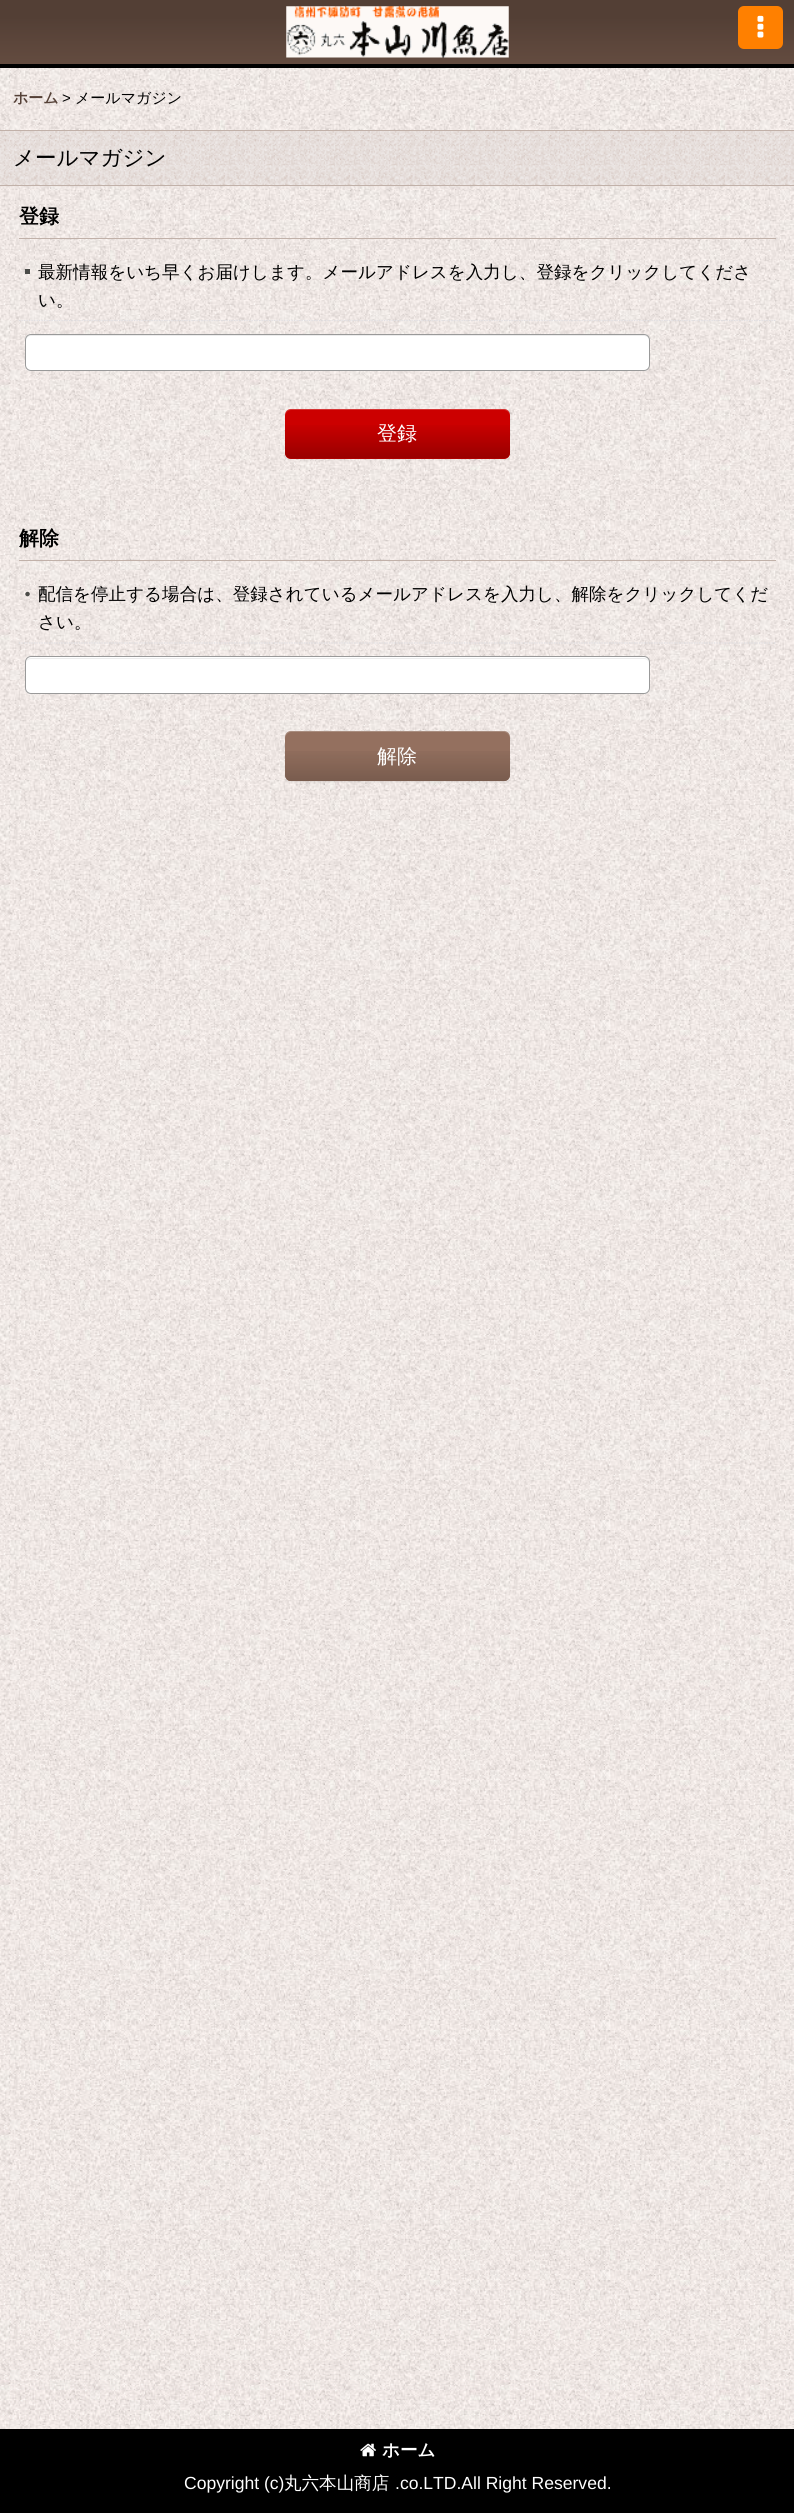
#include <cairo/cairo.h>
#include <math.h>
#include <stddef.h>

typedef struct { double x, y, w, h; unsigned color; } box_t;
static cairo_t *cr;

static void rgb(unsigned color)
{
	cairo_set_source_rgb(cr, (color >> 16) / 255.0, (color >> 8 & 255) / 255.0, (color & 255) / 255.0);
}

static void rrect(double x, double y, double w, double h, double r)
{
	cairo_new_sub_path(cr);
	cairo_arc(cr, x + w - r, y + h - r, r, 0, M_PI / 2);
	cairo_arc(cr, x + r, y + h - r, r, M_PI / 2, M_PI);
	cairo_arc(cr, x + r, y + r, r, M_PI, 1.5 * M_PI);
	cairo_arc(cr, x + w - r, y + r, r, 1.5 * M_PI, 2 * M_PI);
	cairo_close_path(cr);
}

static void soft_shadow(double x, double y, double w, double h, double r, double blur, double alpha)
{
	cairo_push_group_with_content(cr, CAIRO_CONTENT_ALPHA);
	cairo_set_operator(cr, CAIRO_OPERATOR_SOURCE);
	for (int i = 15; i >= -15 && fmin(w, h) + blur * i / 3 > 0; i -= 2) {
		double e = blur * i / 6;
		cairo_set_source_rgba(cr, 0, 0, 0, alpha * erfc((i - 1) / 8.5) / 2);
		rrect(x - e, y - e, w + 2 * e, h + 2 * e, fmax(0, fmin(r + e + blur * .6, fmin(w, h) / 2 + e)));
		cairo_fill(cr);
	}
	cairo_pattern_t *soft = cairo_pop_group(cr);
	cairo_mask(cr, soft);
	cairo_pattern_destroy(soft);
}

static void image(const char *path, double x, double y, double w, double h)
{
	cairo_surface_t *image = cairo_image_surface_create_from_png(path);
	cairo_save(cr);
	cairo_set_source_surface(cr, image, x, y);
	cairo_rectangle(cr, x, y, w, h);
	cairo_fill(cr);
	cairo_restore(cr);
	cairo_surface_destroy(image);
}

int main(void) {
	cairo_surface_t *surface = cairo_image_surface_create(CAIRO_FORMAT_RGB24, 794, 2513);
	cr = cairo_create(surface);
	cairo_font_options_t *options = cairo_font_options_create();
	cairo_font_options_set_hint_metrics(options, CAIRO_HINT_METRICS_OFF);
	cairo_font_options_set_hint_style(options, CAIRO_HINT_STYLE_NONE);
	cairo_set_font_options(cr, options);
	cairo_set_miter_limit(cr, 4);
	rgb(0xffffff);
	cairo_paint(cr);
	image("img/1.png", 0, 68, 794, 2361);
	image("img/2.png", 0, 0, 794, 64);
	rgb(0x000000);
	cairo_rectangle(cr, 0, 64, 794, 4);
	cairo_fill(cr);
	image("img/3.png", 286, 6, 223, 52);
	rgb(0xff8000);
	rrect(738, 6, 45, 43, 6);
	cairo_fill(cr);
	image("img/4.png", 757, 15, 7, 23);
	image("img/5.png", 0, 131, 794, 56);
	{
		static const box_t items[] = {
			{0, 130, 794, 1, 0xc1b1a9},
			{0, 185, 794, 1, 0xc1b1a9},
			{19, 238, 757, 1, 0xc1b1a9},
		};
		for (size_t i = 0; i < sizeof items / sizeof *items; i++) {
			rgb(items[i].color);
			cairo_rectangle(cr, items[i].x, items[i].y, items[i].w, items[i].h);
			cairo_fill(cr);
		}
	}
	cairo_new_path(cr);
	cairo_move_to(cr, 19, 320.5);
	cairo_line_to(cr, 776, 320.5);
	rgb(0xe0dfe3);
	cairo_set_line_width(cr, 1.2);
	cairo_set_dash(cr, (double[]){1.25, 1.25}, 2, 0);
	cairo_stroke(cr);
	rgb(0x4b4b48);
	cairo_rectangle(cr, 25, 269, 5, 5);
	cairo_fill(cr);
	rgb(0xffffff);
	rrect(25, 334, 625, 37, 6);
	cairo_fill(cr);
	rgb(0xececec);
	cairo_new_path(cr);
	cairo_move_to(cr, 31, 336);
	cairo_line_to(cr, 644, 336);
	cairo_curve_to(cr, 647, 336, 649, 338, 649, 341);
	cairo_line_to(cr, 649, 340);
	cairo_curve_to(cr, 649, 337, 647, 335, 644, 335);
	cairo_line_to(cr, 31, 335);
	cairo_curve_to(cr, 28, 335, 26, 337, 26, 340);
	cairo_line_to(cr, 26, 341);
	cairo_curve_to(cr, 26, 338, 28, 336, 31, 336);
	cairo_close_path(cr);
	cairo_fill(cr);
	rrect(25.5, 334.5, 624, 36, 5.5);
	rgb(0x999999);
	cairo_set_line_width(cr, 1);
	cairo_set_dash(cr, NULL, 0, 0);
	cairo_stroke(cr);
	rgb(0x000000);
	soft_shadow(285, 410, 225, 50, 6, 1, 0.05);
	rgb(0xcc0000);
	rrect(285, 409, 225, 50, 6);
	cairo_fill(cr);
	image("img/6.png", 285, 425, 225, 34);
	cairo_set_source_rgba(cr, 1, 1, 1, 0.2);
	cairo_new_path(cr);
	cairo_move_to(cr, 291, 410);
	cairo_line_to(cr, 504, 410);
	cairo_curve_to(cr, 507, 410, 510, 413, 510, 416);
	cairo_line_to(cr, 510, 415);
	cairo_curve_to(cr, 510, 412, 507, 409, 504, 409);
	cairo_line_to(cr, 291, 409);
	cairo_curve_to(cr, 288, 409, 285, 412, 285, 415);
	cairo_line_to(cr, 285, 416);
	cairo_curve_to(cr, 285, 413, 288, 410, 291, 410);
	cairo_close_path(cr);
	cairo_fill(cr);
	rgb(0xc1b1a9);
	cairo_rectangle(cr, 19, 560, 757, 1);
	cairo_fill(cr);
	cairo_new_path(cr);
	cairo_move_to(cr, 19, 643);
	cairo_line_to(cr, 776, 643);
	rgb(0xe0dfe3);
	cairo_set_line_width(cr, 1.2);
	cairo_set_dash(cr, (double[]){1.25, 1.25}, 2, 0);
	cairo_stroke(cr);
	image("img/7.png", 25, 591, 5, 6);
	rgb(0xffffff);
	rrect(25, 656, 625, 38, 6);
	cairo_fill(cr);
	rgb(0xececec);
	cairo_new_path(cr);
	cairo_move_to(cr, 31, 659);
	cairo_line_to(cr, 644, 659);
	cairo_curve_to(cr, 647, 659, 649, 661, 649, 664);
	cairo_line_to(cr, 649, 663);
	cairo_curve_to(cr, 649, 660, 647, 658, 644, 658);
	cairo_line_to(cr, 31, 658);
	cairo_curve_to(cr, 28, 658, 26, 660, 26, 663);
	cairo_line_to(cr, 26, 664);
	cairo_curve_to(cr, 26, 661, 28, 659, 31, 659);
	cairo_close_path(cr);
	cairo_fill(cr);
	rrect(25.5, 656.5, 624, 37, 5.5);
	rgb(0x999999);
	cairo_set_line_width(cr, 1);
	cairo_set_dash(cr, NULL, 0, 0);
	cairo_stroke(cr);
	rgb(0x000000);
	soft_shadow(285, 733, 225, 50, 6, 1, 0.05);
	rgb(0x94705f);
	rrect(285, 731, 225, 50, 6);
	cairo_fill(cr);
	image("img/8.png", 285, 751, 225, 31);
	cairo_set_source_rgba(cr, 1, 1, 1, 0.2);
	cairo_new_path(cr);
	cairo_move_to(cr, 291, 732);
	cairo_line_to(cr, 504, 732);
	cairo_curve_to(cr, 507, 732, 510, 735, 510, 739);
	cairo_line_to(cr, 510, 737);
	cairo_curve_to(cr, 510, 734, 507, 731, 504, 731);
	cairo_line_to(cr, 291, 731);
	cairo_curve_to(cr, 288, 731, 285, 734, 285, 737);
	cairo_line_to(cr, 285, 739);
	cairo_curve_to(cr, 285, 735, 288, 732, 291, 732);
	cairo_close_path(cr);
	cairo_fill(cr);
	rgb(0x000000);
	cairo_rectangle(cr, 0, 2429, 794, 84);
	cairo_fill(cr);
	image("img/9.png", 360, 2443, 16, 14);
	cairo_select_font_face(cr, "WenQuanYi Zen Hei", CAIRO_FONT_SLANT_NORMAL, CAIRO_FONT_WEIGHT_BOLD);
	cairo_set_font_size(cr, 15);
	rgb(0x554137);
	cairo_move_to(cr, 13, 103);
	cairo_show_text(cr, "ホーム");
	cairo_select_font_face(cr, "Liberation Sans", CAIRO_FONT_SLANT_NORMAL, CAIRO_FONT_WEIGHT_NORMAL);
	rgb(0x000000);
	cairo_move_to(cr, 62, 103);
	cairo_show_text(cr, ">");
	cairo_select_font_face(cr, "WenQuanYi Zen Hei Medium", CAIRO_FONT_SLANT_NORMAL, CAIRO_FONT_WEIGHT_NORMAL);
	cairo_move_to(cr, 75, 103);
	cairo_show_text(cr, "メールマガジン");
	cairo_set_font_size(cr, 21.5);
	cairo_move_to(cr, 13, 165);
	cairo_show_text(cr, "メールマガジン");
	cairo_select_font_face(cr, "WenQuanYi Zen Hei", CAIRO_FONT_SLANT_NORMAL, CAIRO_FONT_WEIGHT_BOLD);
	cairo_set_font_size(cr, 20);
	cairo_move_to(cr, 19, 223);
	cairo_show_text(cr, "登録");
	cairo_select_font_face(cr, "WenQuanYi Zen Hei Medium", CAIRO_FONT_SLANT_NORMAL, CAIRO_FONT_WEIGHT_NORMAL);
	cairo_set_font_size(cr, 17.55);
	cairo_move_to(cr, 38, 278);
	cairo_show_text(cr, "最新情報をいち早くお届けします。メールアドレスを入力し、登録をクリックしてくださ");
	cairo_move_to(cr, 38, 306);
	cairo_show_text(cr, "い。");
	cairo_set_font_size(cr, 20);
	rgb(0xffffff);
	cairo_move_to(cr, 377, 440);
	cairo_show_text(cr, "登録");
	cairo_select_font_face(cr, "WenQuanYi Zen Hei", CAIRO_FONT_SLANT_NORMAL, CAIRO_FONT_WEIGHT_BOLD);
	rgb(0x000000);
	cairo_move_to(cr, 19, 545);
	cairo_show_text(cr, "解除");
	cairo_select_font_face(cr, "WenQuanYi Zen Hei Medium", CAIRO_FONT_SLANT_NORMAL, CAIRO_FONT_WEIGHT_NORMAL);
	cairo_set_font_size(cr, 17.55);
	cairo_move_to(cr, 38, 600);
	cairo_show_text(cr, "配信を停止する場合は、登録されているメールアドレスを入力し、解除をクリックしてくだ");
	cairo_move_to(cr, 38, 628);
	cairo_show_text(cr, "さい。");
	cairo_set_font_size(cr, 20);
	rgb(0xffffff);
	cairo_move_to(cr, 377, 763);
	cairo_show_text(cr, "解除");
	cairo_select_font_face(cr, "WenQuanYi Zen Hei", CAIRO_FONT_SLANT_NORMAL, CAIRO_FONT_WEIGHT_BOLD);
	cairo_set_font_size(cr, 17.55);
	cairo_move_to(cr, 382, 2456);
	cairo_show_text(cr, "ホーム");
	cairo_select_font_face(cr, "Liberation Sans", CAIRO_FONT_SLANT_NORMAL, CAIRO_FONT_WEIGHT_NORMAL);
	cairo_move_to(cr, 184, 2489);
	cairo_show_text(cr, "Copyright (c)");
	cairo_select_font_face(cr, "WenQuanYi Zen Hei Medium", CAIRO_FONT_SLANT_NORMAL, CAIRO_FONT_WEIGHT_NORMAL);
	cairo_move_to(cr, 284, 2489);
	cairo_show_text(cr, "丸六本山商店");
	cairo_select_font_face(cr, "Liberation Sans", CAIRO_FONT_SLANT_NORMAL, CAIRO_FONT_WEIGHT_NORMAL);
	cairo_move_to(cr, 395, 2489);
	cairo_show_text(cr, ".co.LTD.All Right Reserved.");
	cairo_surface_write_to_png(surface, "page.png");
	cairo_font_options_destroy(options);
	cairo_destroy(cr);
	cairo_surface_destroy(surface);
	return 0;
}
